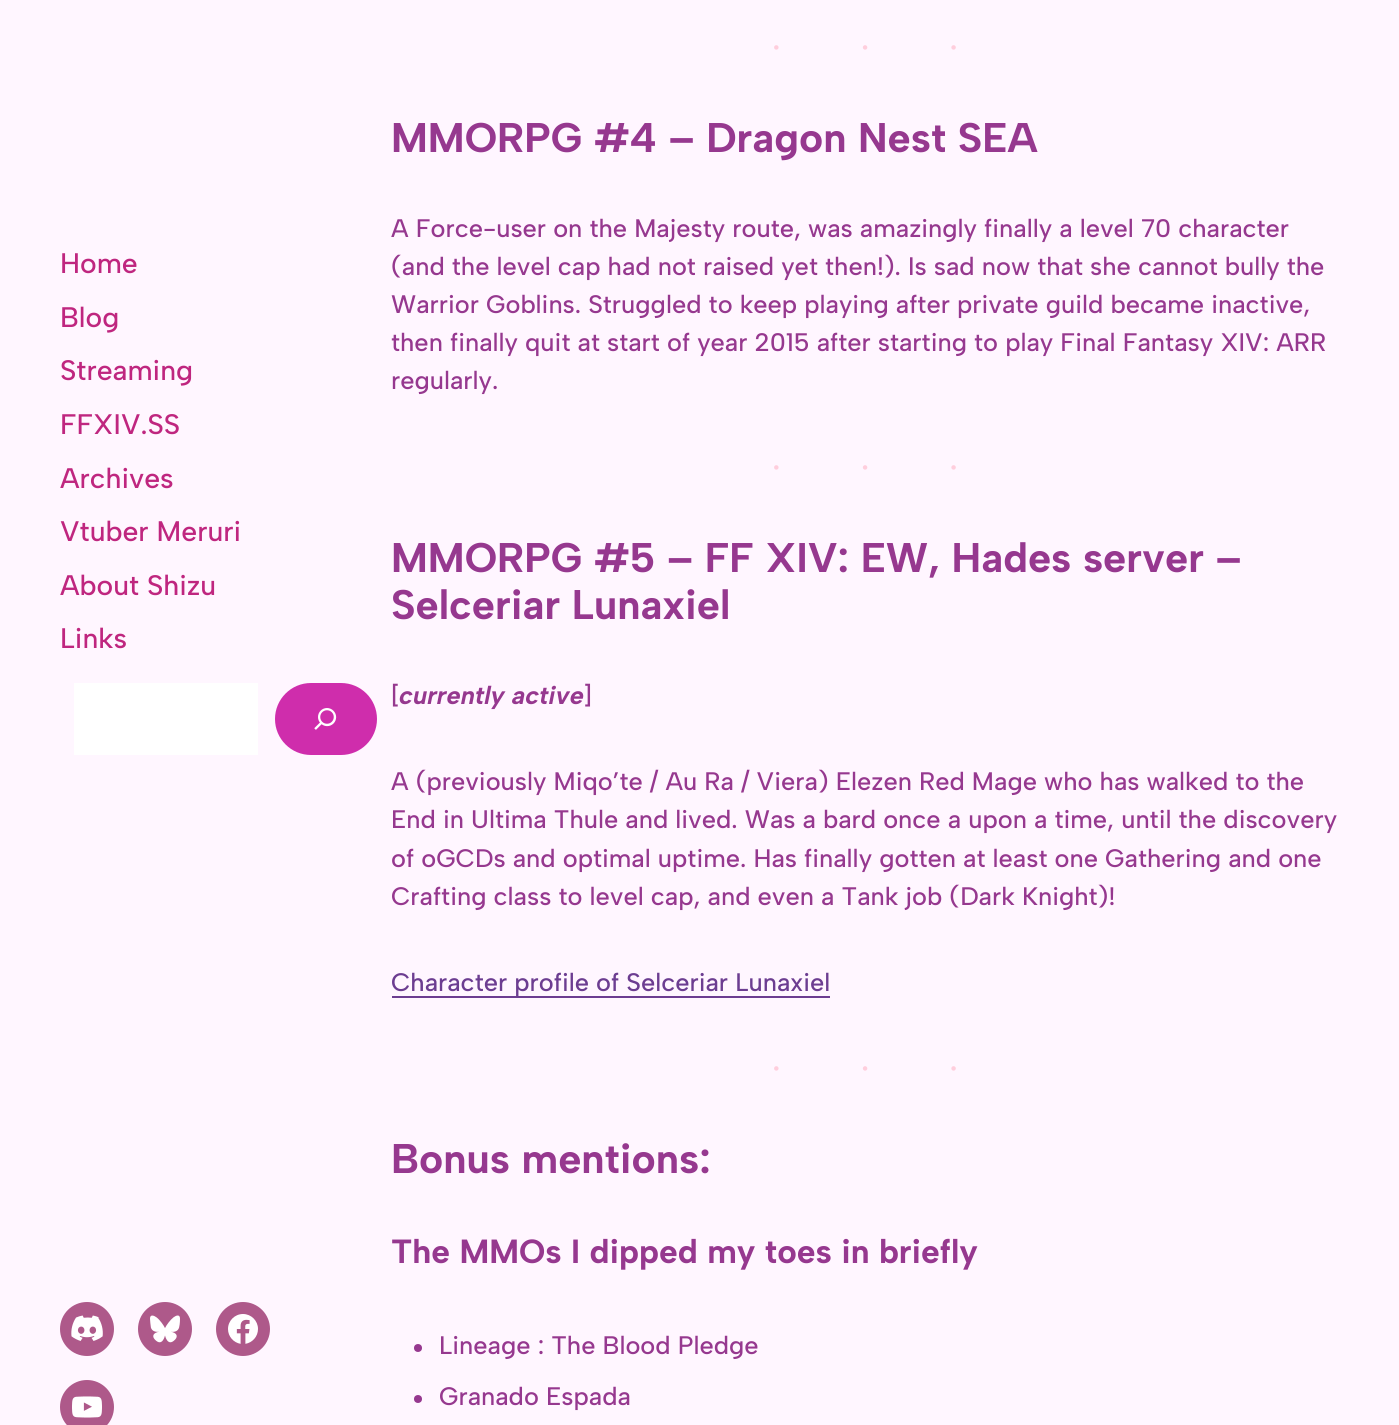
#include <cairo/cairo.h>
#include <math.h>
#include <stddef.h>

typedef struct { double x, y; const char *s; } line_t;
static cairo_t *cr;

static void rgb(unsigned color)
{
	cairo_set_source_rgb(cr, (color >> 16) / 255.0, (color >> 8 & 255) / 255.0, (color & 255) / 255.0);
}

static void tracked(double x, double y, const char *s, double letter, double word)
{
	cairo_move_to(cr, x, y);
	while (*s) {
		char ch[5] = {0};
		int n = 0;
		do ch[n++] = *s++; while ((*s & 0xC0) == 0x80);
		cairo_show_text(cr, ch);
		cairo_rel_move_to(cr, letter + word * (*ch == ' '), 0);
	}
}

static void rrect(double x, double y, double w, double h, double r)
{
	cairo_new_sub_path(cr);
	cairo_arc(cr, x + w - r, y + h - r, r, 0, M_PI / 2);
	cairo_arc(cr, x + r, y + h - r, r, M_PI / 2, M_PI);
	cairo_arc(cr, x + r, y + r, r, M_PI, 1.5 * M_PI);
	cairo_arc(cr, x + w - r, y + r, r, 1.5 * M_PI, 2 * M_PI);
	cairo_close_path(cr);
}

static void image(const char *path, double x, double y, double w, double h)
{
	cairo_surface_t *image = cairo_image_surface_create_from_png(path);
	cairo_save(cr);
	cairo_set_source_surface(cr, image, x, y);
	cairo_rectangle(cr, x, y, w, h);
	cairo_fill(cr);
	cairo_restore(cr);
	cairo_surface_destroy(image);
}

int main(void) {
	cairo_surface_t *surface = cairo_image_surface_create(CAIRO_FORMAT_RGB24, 1399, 1425);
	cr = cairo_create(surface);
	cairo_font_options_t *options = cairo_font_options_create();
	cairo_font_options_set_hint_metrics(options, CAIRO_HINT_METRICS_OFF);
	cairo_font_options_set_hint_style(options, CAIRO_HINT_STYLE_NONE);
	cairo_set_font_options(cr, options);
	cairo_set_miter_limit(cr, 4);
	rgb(0xfff6ff);
	cairo_paint(cr);
	rgb(0xffffff);
	cairo_rectangle(cr, 74, 683, 184, 72);
	cairo_fill(cr);
	rgb(0xcf2dac);
	rrect(275, 683, 102, 72, 36);
	cairo_fill(cr);
	image("img/1.png", 314, 708, 23, 22);
	rgb(0xae598a);
	cairo_arc(cr, 87, 1329, 27, 0, 2 * M_PI);
	cairo_fill(cr);
	image("img/2.png", 71, 1315, 32, 26);
	cairo_arc(cr, 165, 1329, 27, 0, 2 * M_PI);
	cairo_fill(cr);
	image("img/3.png", 150, 1315, 30, 28);
	cairo_arc(cr, 243, 1329, 27, 0, 2 * M_PI);
	cairo_fill(cr);
	image("img/4.png", 228, 1314, 30, 30);
	cairo_arc(cr, 87, 1407, 27, 0, 2 * M_PI);
	cairo_fill(cr);
	image("img/5.png", 72, 1396, 30, 22);
	rgb(0x6c3d91);
	cairo_rectangle(cr, 392, 996, 438, 2);
	cairo_fill(cr);
	rgb(0x96388f);
	cairo_arc(cr, 418, 1348, 4, 0, 2 * M_PI);
	cairo_fill(cr);
	cairo_arc(cr, 418, 1399, 4, 0, 2 * M_PI);
	cairo_fill(cr);
	cairo_select_font_face(cr, "Albert Sans Medium", CAIRO_FONT_SLANT_NORMAL, CAIRO_FONT_WEIGHT_NORMAL);
	cairo_set_font_size(cr, 28.25);
	rgb(0xbf267f);
	{
		static const line_t items[] = {
			{60, 273, "Home"},
			{60, 327, "Blog"},
			{60, 380, "Streaming"},
			{60, 434, "FFXIV.SS"},
			{60, 488, "Archives"},
			{60, 541, "Vtuber Meruri"},
			{60, 595, "About Shizu"},
			{60, 648, "Links"},
		};
		for (size_t i = 0; i < sizeof items / sizeof *items; i++) {
			cairo_move_to(cr, items[i].x, items[i].y);
			cairo_show_text(cr, items[i].s);
		}
	}
	cairo_select_font_face(cr, "Liberation Serif", CAIRO_FONT_SLANT_NORMAL, CAIRO_FONT_WEIGHT_NORMAL);
	cairo_set_font_size(cr, 38);
	rgb(0xffcedd);
	tracked(770, 60, "···", 76, 0);
	cairo_select_font_face(cr, "Albert Sans", CAIRO_FONT_SLANT_NORMAL, CAIRO_FONT_WEIGHT_BOLD);
	cairo_set_font_size(cr, 41.4);
	rgb(0x96388f);
	cairo_move_to(cr, 391, 152);
	cairo_show_text(cr, "MMORPG #4 – Dragon Nest SEA");
	cairo_select_font_face(cr, "Albert Sans Medium", CAIRO_FONT_SLANT_NORMAL, CAIRO_FONT_WEIGHT_NORMAL);
	cairo_set_font_size(cr, 25.35);
	{
		static const line_t items[] = {
			{391, 237, "A Force-user on the Majesty route, was amazingly finally a level 70 character"},
			{391, 275, "(and the level cap had not raised yet then!). Is sad now that she cannot bully the"},
			{391, 313, "Warrior Goblins. Struggled to keep playing after private guild became inactive,"},
			{391, 351, "then finally quit at start of year 2015 after starting to play Final Fantasy XIV: ARR"},
			{391, 389, "regularly."},
		};
		for (size_t i = 0; i < sizeof items / sizeof *items; i++) {
			cairo_move_to(cr, items[i].x, items[i].y);
			cairo_show_text(cr, items[i].s);
		}
	}
	cairo_select_font_face(cr, "Liberation Serif", CAIRO_FONT_SLANT_NORMAL, CAIRO_FONT_WEIGHT_NORMAL);
	cairo_set_font_size(cr, 38);
	rgb(0xffcedd);
	tracked(770, 480, "···", 76, 0);
	cairo_select_font_face(cr, "Albert Sans", CAIRO_FONT_SLANT_NORMAL, CAIRO_FONT_WEIGHT_BOLD);
	cairo_set_font_size(cr, 41.4);
	rgb(0x96388f);
	cairo_move_to(cr, 391, 572);
	cairo_show_text(cr, "MMORPG #5 – FF XIV: EW, Hades server –");
	cairo_move_to(cr, 391, 619);
	cairo_show_text(cr, "Selceriar Lunaxiel");
	cairo_select_font_face(cr, "Albert Sans Medium", CAIRO_FONT_SLANT_NORMAL, CAIRO_FONT_WEIGHT_NORMAL);
	cairo_set_font_size(cr, 25.35);
	cairo_move_to(cr, 391, 704);
	cairo_show_text(cr, "[");
	cairo_select_font_face(cr, "Albert Sans", CAIRO_FONT_SLANT_ITALIC, CAIRO_FONT_WEIGHT_BOLD);
	cairo_move_to(cr, 399, 704);
	cairo_show_text(cr, "currently active");
	cairo_select_font_face(cr, "Albert Sans Medium", CAIRO_FONT_SLANT_NORMAL, CAIRO_FONT_WEIGHT_NORMAL);
	{
		static const line_t items[] = {
			{584, 704, "]"},
			{391, 790, "A (previously Miqo’te / Au Ra / Viera) Elezen Red Mage who has walked to the"},
			{391, 828, "End in Ultima Thule and lived. Was a bard once a upon a time, until the discovery"},
			{391, 867, "of oGCDs and optimal uptime. Has finally gotten at least one Gathering and one"},
			{391, 905, "Crafting class to level cap, and even a Tank job (Dark Knight)!"},
		};
		for (size_t i = 0; i < sizeof items / sizeof *items; i++) {
			cairo_move_to(cr, items[i].x, items[i].y);
			cairo_show_text(cr, items[i].s);
		}
	}
	rgb(0x6c3d91);
	cairo_move_to(cr, 391, 991);
	cairo_show_text(cr, "Character profile of Selceriar Lunaxiel");
	cairo_select_font_face(cr, "Liberation Serif", CAIRO_FONT_SLANT_NORMAL, CAIRO_FONT_WEIGHT_NORMAL);
	cairo_set_font_size(cr, 38);
	rgb(0xffcedd);
	tracked(770, 1081, "···", 76, 0);
	cairo_select_font_face(cr, "Albert Sans", CAIRO_FONT_SLANT_NORMAL, CAIRO_FONT_WEIGHT_BOLD);
	cairo_set_font_size(cr, 41.4);
	rgb(0x96388f);
	cairo_move_to(cr, 391, 1173);
	cairo_show_text(cr, "Bonus mentions:");
	cairo_set_font_size(cr, 33.5);
	cairo_move_to(cr, 391, 1263);
	cairo_show_text(cr, "The MMOs I dipped my toes in briefly");
	cairo_select_font_face(cr, "Albert Sans Medium", CAIRO_FONT_SLANT_NORMAL, CAIRO_FONT_WEIGHT_NORMAL);
	cairo_set_font_size(cr, 25.35);
	cairo_move_to(cr, 439, 1354);
	cairo_show_text(cr, "Lineage : The Blood Pledge");
	cairo_move_to(cr, 439, 1405);
	cairo_show_text(cr, "Granado Espada");
	cairo_surface_write_to_png(surface, "page.png");
	cairo_font_options_destroy(options);
	cairo_destroy(cr);
	cairo_surface_destroy(surface);
	return 0;
}
